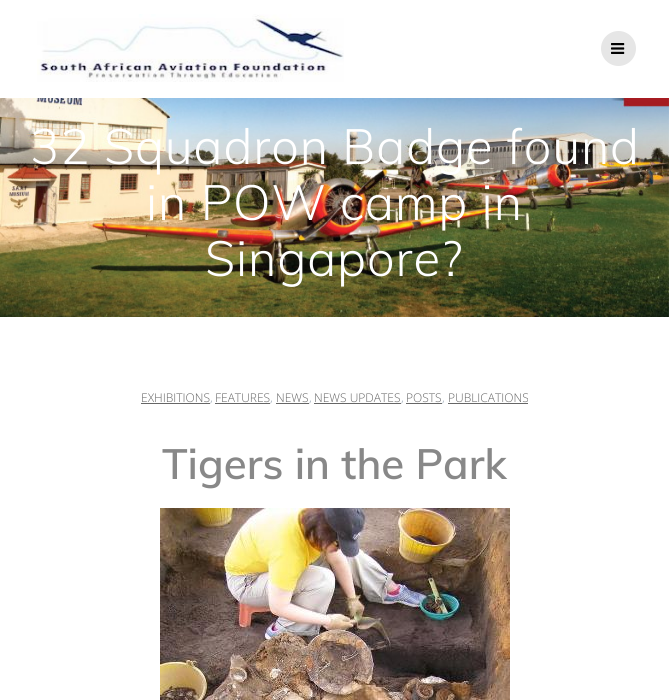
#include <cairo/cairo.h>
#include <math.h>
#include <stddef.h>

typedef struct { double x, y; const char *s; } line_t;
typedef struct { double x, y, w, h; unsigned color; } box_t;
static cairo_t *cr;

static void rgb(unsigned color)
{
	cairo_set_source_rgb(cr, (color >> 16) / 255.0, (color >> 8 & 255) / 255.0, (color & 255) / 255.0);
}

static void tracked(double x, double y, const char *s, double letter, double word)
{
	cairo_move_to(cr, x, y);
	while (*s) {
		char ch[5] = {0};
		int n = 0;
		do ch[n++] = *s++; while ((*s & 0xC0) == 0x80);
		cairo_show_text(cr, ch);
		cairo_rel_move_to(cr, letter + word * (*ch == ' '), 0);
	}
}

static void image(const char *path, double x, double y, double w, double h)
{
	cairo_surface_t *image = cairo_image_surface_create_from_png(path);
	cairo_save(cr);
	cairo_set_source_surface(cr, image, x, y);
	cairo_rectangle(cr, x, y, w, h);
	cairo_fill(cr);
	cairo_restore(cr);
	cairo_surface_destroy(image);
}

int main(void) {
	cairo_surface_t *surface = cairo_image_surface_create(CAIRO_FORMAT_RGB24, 669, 700);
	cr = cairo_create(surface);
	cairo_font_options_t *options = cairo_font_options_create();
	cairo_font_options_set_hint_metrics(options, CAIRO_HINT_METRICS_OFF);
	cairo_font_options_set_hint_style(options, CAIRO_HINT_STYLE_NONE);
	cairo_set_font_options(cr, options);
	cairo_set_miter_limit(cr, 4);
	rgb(0xffffff);
	cairo_paint(cr);
	image("img/1.png", 37, 14, 307, 68);
	rgb(0xe6e6e6);
	cairo_arc(cr, 618.5, 48.5, 17.5, 0, 2 * M_PI);
	cairo_fill(cr);
	image("img/2.png", 611, 43, 14, 11);
	image("img/3.png", 0, 98, 669, 219);
	{
		static const box_t items[] = {
			{141, 403, 69, 1, 0x666666},
			{215, 403, 55, 1, 0x666666},
			{276, 403, 33, 1, 0x666666},
			{314, 403, 87, 1, 0x666666},
			{406, 403, 36, 1, 0x666666},
			{448, 403, 80, 1, 0x666666},
		};
		for (size_t i = 0; i < sizeof items / sizeof *items; i++) {
			rgb(items[i].color);
			cairo_rectangle(cr, items[i].x, items[i].y, items[i].w, items[i].h);
			cairo_fill(cr);
		}
	}
	image("img/4.png", 160, 508, 350, 192);
	cairo_select_font_face(cr, "Muli Light", CAIRO_FONT_SLANT_NORMAL, CAIRO_FONT_WEIGHT_NORMAL);
	cairo_set_font_size(cr, 49);
	rgb(0xffffff);
	{
		static const line_t items[] = {
			{30, 164, "32 Squadron Badge found"},
			{146, 220, "in POW camp in"},
			{205, 276, "Singapore?"},
		};
		for (size_t i = 0; i < sizeof items / sizeof *items; i++) {
			tracked(items[i].x, items[i].y, items[i].s, 0.9, 0);
		}
	}
	cairo_select_font_face(cr, "Open Sans Light", CAIRO_FONT_SLANT_NORMAL, CAIRO_FONT_WEIGHT_NORMAL);
	cairo_set_font_size(cr, 12);
	rgb(0x666666);
	cairo_move_to(cr, 141, 402);
	cairo_show_text(cr, "EXHIBITIONS");
	rgb(0x8e9dae);
	cairo_move_to(cr, 210, 402);
	cairo_show_text(cr, ",");
	rgb(0x666666);
	cairo_move_to(cr, 215, 402);
	cairo_show_text(cr, "FEATURES");
	rgb(0x8e9dae);
	cairo_move_to(cr, 270, 402);
	cairo_show_text(cr, ",");
	rgb(0x666666);
	cairo_move_to(cr, 276, 402);
	cairo_show_text(cr, "NEWS");
	rgb(0x8e9dae);
	cairo_move_to(cr, 309, 402);
	cairo_show_text(cr, ",");
	rgb(0x666666);
	cairo_move_to(cr, 314, 402);
	cairo_show_text(cr, "NEWS UPDATES");
	rgb(0x8e9dae);
	cairo_move_to(cr, 401, 402);
	cairo_show_text(cr, ",");
	rgb(0x666666);
	cairo_move_to(cr, 406, 402);
	cairo_show_text(cr, "POSTS");
	rgb(0x8e9dae);
	cairo_move_to(cr, 442, 402);
	cairo_show_text(cr, ",");
	rgb(0x666666);
	cairo_move_to(cr, 448, 402);
	cairo_show_text(cr, "PUBLICATIONS");
	cairo_select_font_face(cr, "Muli SemiBold", CAIRO_FONT_SLANT_NORMAL, CAIRO_FONT_WEIGHT_NORMAL);
	cairo_set_font_size(cr, 42);
	rgb(0x888888);
	cairo_move_to(cr, 162, 479);
	cairo_show_text(cr, "Tigers in the Park");
	cairo_surface_write_to_png(surface, "page.png");
	cairo_font_options_destroy(options);
	cairo_destroy(cr);
	cairo_surface_destroy(surface);
	return 0;
}
